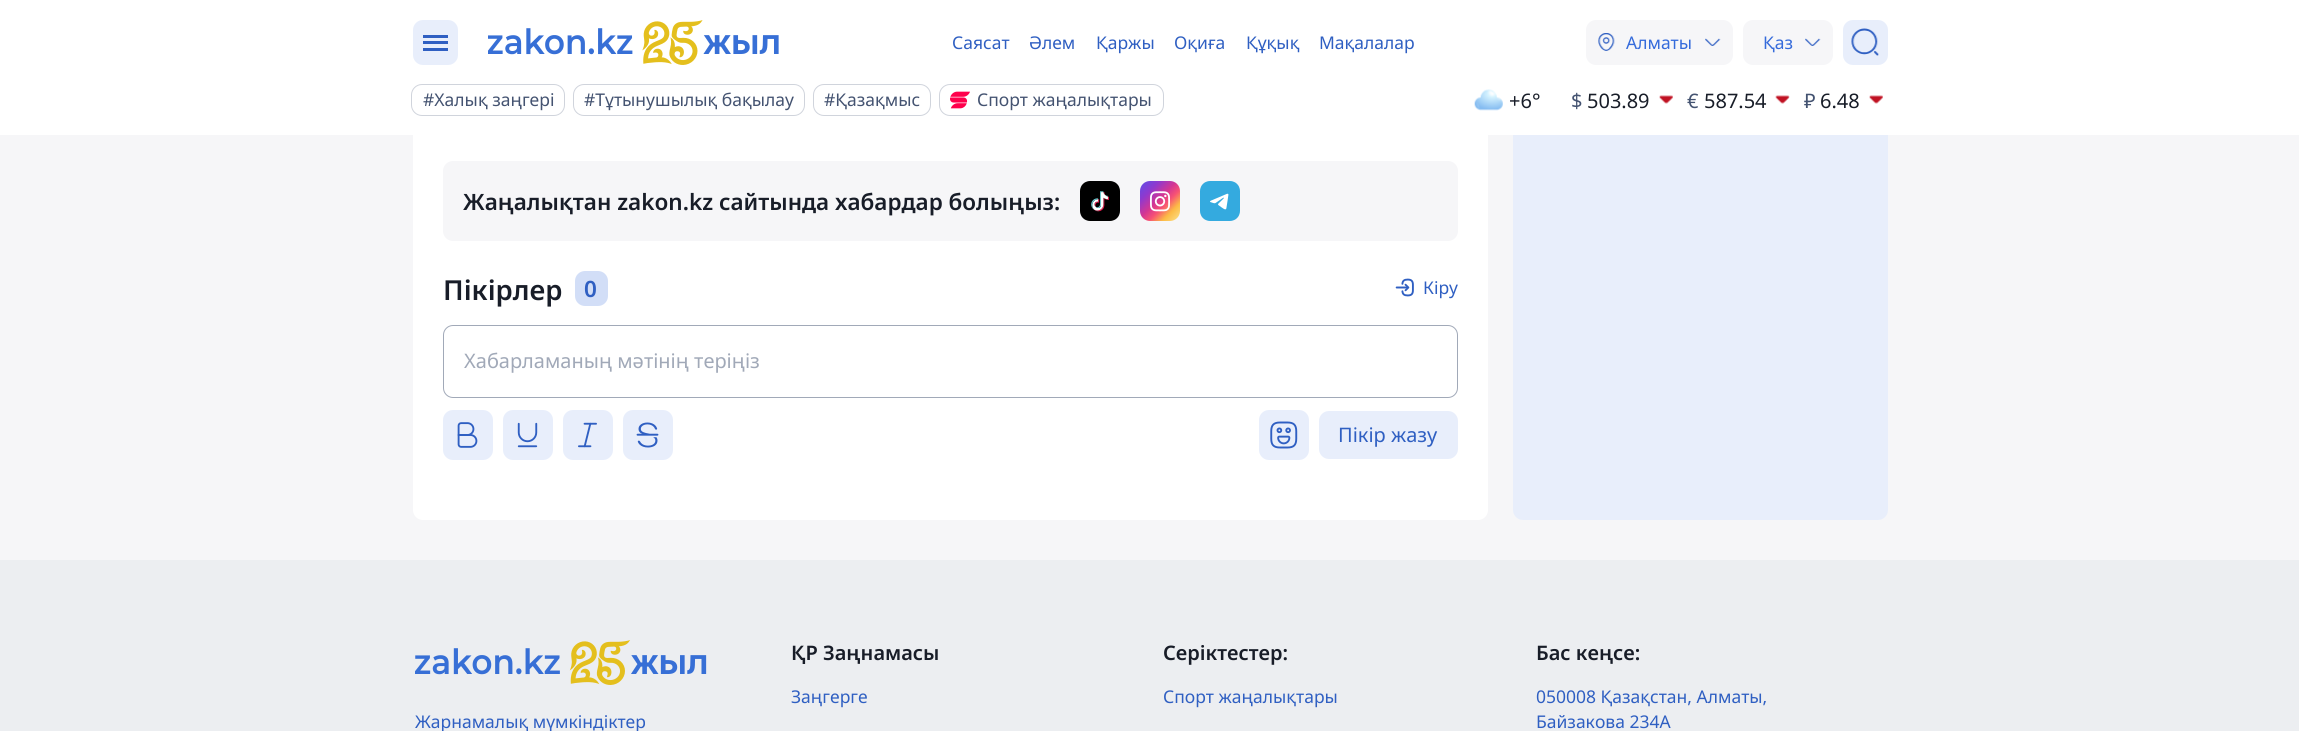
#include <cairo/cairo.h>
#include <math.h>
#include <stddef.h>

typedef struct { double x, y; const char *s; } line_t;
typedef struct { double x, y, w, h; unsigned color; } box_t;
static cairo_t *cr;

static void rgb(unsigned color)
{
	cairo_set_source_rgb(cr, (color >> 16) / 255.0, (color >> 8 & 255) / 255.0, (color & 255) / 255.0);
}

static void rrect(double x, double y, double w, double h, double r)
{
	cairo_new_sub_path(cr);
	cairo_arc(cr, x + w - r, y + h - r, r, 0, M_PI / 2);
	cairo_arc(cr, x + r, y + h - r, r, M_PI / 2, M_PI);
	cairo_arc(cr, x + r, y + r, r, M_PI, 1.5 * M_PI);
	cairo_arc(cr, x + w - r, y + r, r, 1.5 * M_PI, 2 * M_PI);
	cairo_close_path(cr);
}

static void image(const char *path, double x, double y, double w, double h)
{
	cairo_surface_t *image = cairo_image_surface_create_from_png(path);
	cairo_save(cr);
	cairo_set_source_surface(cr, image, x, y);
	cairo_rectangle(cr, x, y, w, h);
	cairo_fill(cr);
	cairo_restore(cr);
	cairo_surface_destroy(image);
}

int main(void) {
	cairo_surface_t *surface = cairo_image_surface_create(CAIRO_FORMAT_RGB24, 2299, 731);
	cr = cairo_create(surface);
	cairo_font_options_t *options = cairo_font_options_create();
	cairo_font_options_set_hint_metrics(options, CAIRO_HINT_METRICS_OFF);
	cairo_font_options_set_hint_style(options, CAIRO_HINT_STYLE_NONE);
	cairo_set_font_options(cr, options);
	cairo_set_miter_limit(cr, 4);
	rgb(0xf6f6f8);
	cairo_paint(cr);
	rgb(0xffffff);
	rrect(413, -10, 1075, 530, 10);
	cairo_fill(cr);
	rgb(0xe8eefb);
	rrect(1513, -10, 375, 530, 10);
	cairo_fill(cr);
	rgb(0xffffff);
	cairo_rectangle(cr, 0, 0, 2299, 135);
	cairo_fill(cr);
	rgb(0xe8eefb);
	rrect(413, 20, 45, 45, 10);
	cairo_fill(cr);
	{
		static const box_t items[] = {
			{423, 35, 25, 3, 0x2f5fc2},
			{423, 41, 25, 3, 0x2f5fc2},
			{423, 48, 25, 3, 0x2f5fc2},
		};
		for (size_t i = 0; i < sizeof items / sizeof *items; i++) {
			rgb(items[i].color);
			cairo_rectangle(cr, items[i].x, items[i].y, items[i].w, items[i].h);
			cairo_fill(cr);
		}
	}
	image("img/1.png", 488, 20, 291, 45);
	rgb(0xf6f6f8);
	rrect(1586, 20, 147, 45, 10);
	cairo_fill(cr);
	image("img/2.png", 1598, 33, 17, 18);
	image("img/3.png", 1705, 38, 16, 8);
	rrect(1743, 20, 90, 45, 10);
	cairo_fill(cr);
	image("img/3.png", 1805, 38, 16, 8);
	rgb(0xe8eefb);
	rrect(1843, 20, 45, 45, 10);
	cairo_fill(cr);
	image("img/4.png", 1851, 28, 28, 28);
	rrect(411.5, 84.5, 153, 31, 10.5);
	rgb(0xd0d4dc);
	cairo_set_line_width(cr, 1);
	cairo_stroke(cr);
	rrect(573.5, 84.5, 231, 31, 10.5);
	cairo_stroke(cr);
	rrect(813.5, 84.5, 117, 31, 10.5);
	cairo_stroke(cr);
	image("img/5.png", 950, 91, 20, 18);
	rrect(939.5, 84.5, 224, 31, 10.5);
	cairo_stroke(cr);
	image("img/6.png", 1474, 89, 29, 22);
	image("img/7.png", 1659, 95, 14, 9);
	image("img/8.png", 1775, 95, 15, 9);
	image("img/7.png", 1869, 95, 14, 9);
	rgb(0xf6f6f8);
	rrect(443, 161, 1015, 80, 10);
	cairo_fill(cr);
	image("img/9.png", 1080, 181, 40, 40);
	image("img/10.png", 1140, 181, 40, 40);
	image("img/11.png", 1200, 181, 40, 40);
	rgb(0xd2def7);
	rrect(575, 271, 33, 35, 10);
	cairo_fill(cr);
	image("img/12.png", 1395, 278, 19, 19);
	rrect(443.5, 325.5, 1014, 72, 9.5);
	rgb(0xa1a9b8);
	cairo_stroke(cr);
	rgb(0xe8eefb);
	rrect(443, 410, 50, 50, 10);
	cairo_fill(cr);
	image("img/13.png", 457, 422, 21, 26);
	rrect(503, 410, 50, 50, 10);
	cairo_fill(cr);
	image("img/14.png", 517, 422, 21, 26);
	rrect(563, 410, 50, 50, 10);
	cairo_fill(cr);
	image("img/15.png", 578, 422, 19, 26);
	rrect(623, 410, 50, 50, 10);
	cairo_fill(cr);
	image("img/16.png", 636, 422, 23, 26);
	rrect(1259, 410, 50, 50, 10);
	cairo_fill(cr);
	image("img/17.png", 1270, 421, 28, 28);
	rrect(1319, 411, 139, 48, 10);
	cairo_fill(cr);
	rgb(0xeceef1);
	cairo_rectangle(cr, 0, 560, 2299, 171);
	cairo_fill(cr);
	image("img/18.png", 415, 640, 292, 45);
	cairo_select_font_face(cr, "Noto Sans", CAIRO_FONT_SLANT_NORMAL, CAIRO_FONT_WEIGHT_NORMAL);
	cairo_set_font_size(cr, 17.5);
	rgb(0x2f5fc2);
	{
		static const line_t items[] = {
			{952, 49, "Саясат"},
			{1029, 49, "Әлем"},
			{1096, 49, "Қаржы"},
			{1174, 49, "Оқиға"},
			{1246, 49, "Құқық"},
			{1319, 49, "Мақалалар"},
		};
		for (size_t i = 0; i < sizeof items / sizeof *items; i++) {
			cairo_move_to(cr, items[i].x, items[i].y);
			cairo_show_text(cr, items[i].s);
		}
	}
	rgb(0x356bdb);
	cairo_move_to(cr, 1626, 49);
	cairo_show_text(cr, "Алматы");
	cairo_move_to(cr, 1763, 49);
	cairo_show_text(cr, "Қаз");
	rgb(0x445371);
	{
		static const line_t items[] = {
			{423, 106, "#Халық заңгері"},
			{584, 106, "#Тұтынушылық бақылау"},
			{824, 106, "#Қазақмыс"},
			{977, 106, "Спорт жаңалықтары"},
		};
		for (size_t i = 0; i < sizeof items / sizeof *items; i++) {
			cairo_move_to(cr, items[i].x, items[i].y);
			cairo_show_text(cr, items[i].s);
		}
	}
	cairo_set_font_size(cr, 20);
	rgb(0x181d28);
	cairo_move_to(cr, 1509, 108);
	cairo_show_text(cr, "+6°");
	rgb(0x445371);
	cairo_move_to(cr, 1571, 108);
	cairo_show_text(cr, "$");
	rgb(0x181d28);
	cairo_move_to(cr, 1587, 108);
	cairo_show_text(cr, "503.89");
	rgb(0x445371);
	cairo_move_to(cr, 1687, 108);
	cairo_show_text(cr, "€");
	rgb(0x181d28);
	cairo_move_to(cr, 1704, 108);
	cairo_show_text(cr, "587.54");
	rgb(0x445371);
	cairo_move_to(cr, 1804, 108);
	cairo_show_text(cr, "₽");
	rgb(0x181d28);
	cairo_move_to(cr, 1820, 108);
	cairo_show_text(cr, "6.48");
	cairo_select_font_face(cr, "Noto Sans SemiBold", CAIRO_FONT_SLANT_NORMAL, CAIRO_FONT_WEIGHT_NORMAL);
	cairo_set_font_size(cr, 22.5);
	cairo_move_to(cr, 463, 210);
	cairo_show_text(cr, "Жаңалықтан zakon.kz сайтында хабардар болыңыз:");
	cairo_set_font_size(cr, 27.5);
	cairo_move_to(cr, 443, 300);
	cairo_show_text(cr, "Пікірлер");
	cairo_set_font_size(cr, 22.5);
	rgb(0x2f5fc2);
	cairo_move_to(cr, 584, 297);
	cairo_show_text(cr, "0");
	cairo_select_font_face(cr, "Noto Sans", CAIRO_FONT_SLANT_NORMAL, CAIRO_FONT_WEIGHT_NORMAL);
	cairo_set_font_size(cr, 17.5);
	cairo_move_to(cr, 1423, 294);
	cairo_show_text(cr, "Кіру");
	cairo_set_font_size(cr, 20);
	rgb(0xa1a9b8);
	cairo_move_to(cr, 464, 368);
	cairo_show_text(cr, "Хабарламаның мәтінің теріңіз");
	rgb(0x2f5fc2);
	cairo_move_to(cr, 1338, 442);
	cairo_show_text(cr, "Пікір жазу");
	cairo_set_font_size(cr, 17.5);
	cairo_move_to(cr, 415, 728);
	cairo_show_text(cr, "Жарнамалық мүмкіндіктер");
	cairo_select_font_face(cr, "Noto Sans SemiBold", CAIRO_FONT_SLANT_NORMAL, CAIRO_FONT_WEIGHT_NORMAL);
	cairo_set_font_size(cr, 20);
	rgb(0x181d28);
	cairo_move_to(cr, 791, 660);
	cairo_show_text(cr, "ҚР Заңнамасы");
	cairo_select_font_face(cr, "Noto Sans", CAIRO_FONT_SLANT_NORMAL, CAIRO_FONT_WEIGHT_NORMAL);
	cairo_set_font_size(cr, 17.5);
	rgb(0x2f5fc2);
	cairo_move_to(cr, 791, 703);
	cairo_show_text(cr, "Заңгерге");
	cairo_select_font_face(cr, "Noto Sans SemiBold", CAIRO_FONT_SLANT_NORMAL, CAIRO_FONT_WEIGHT_NORMAL);
	cairo_set_font_size(cr, 20);
	rgb(0x181d28);
	cairo_move_to(cr, 1163, 660);
	cairo_show_text(cr, "Серіктестер:");
	cairo_select_font_face(cr, "Noto Sans", CAIRO_FONT_SLANT_NORMAL, CAIRO_FONT_WEIGHT_NORMAL);
	cairo_set_font_size(cr, 17.5);
	rgb(0x2f5fc2);
	cairo_move_to(cr, 1163, 703);
	cairo_show_text(cr, "Спорт жаңалықтары");
	cairo_select_font_face(cr, "Noto Sans SemiBold", CAIRO_FONT_SLANT_NORMAL, CAIRO_FONT_WEIGHT_NORMAL);
	cairo_set_font_size(cr, 20);
	rgb(0x181d28);
	cairo_move_to(cr, 1536, 660);
	cairo_show_text(cr, "Бас кеңсе:");
	cairo_select_font_face(cr, "Noto Sans", CAIRO_FONT_SLANT_NORMAL, CAIRO_FONT_WEIGHT_NORMAL);
	cairo_set_font_size(cr, 17.5);
	rgb(0x2f5fc2);
	cairo_move_to(cr, 1536, 703);
	cairo_show_text(cr, "050008 Қазақстан, Алматы,");
	cairo_move_to(cr, 1536, 728);
	cairo_show_text(cr, "Байзакова 234А");
	cairo_surface_write_to_png(surface, "page.png");
	cairo_font_options_destroy(options);
	cairo_destroy(cr);
	cairo_surface_destroy(surface);
	return 0;
}
